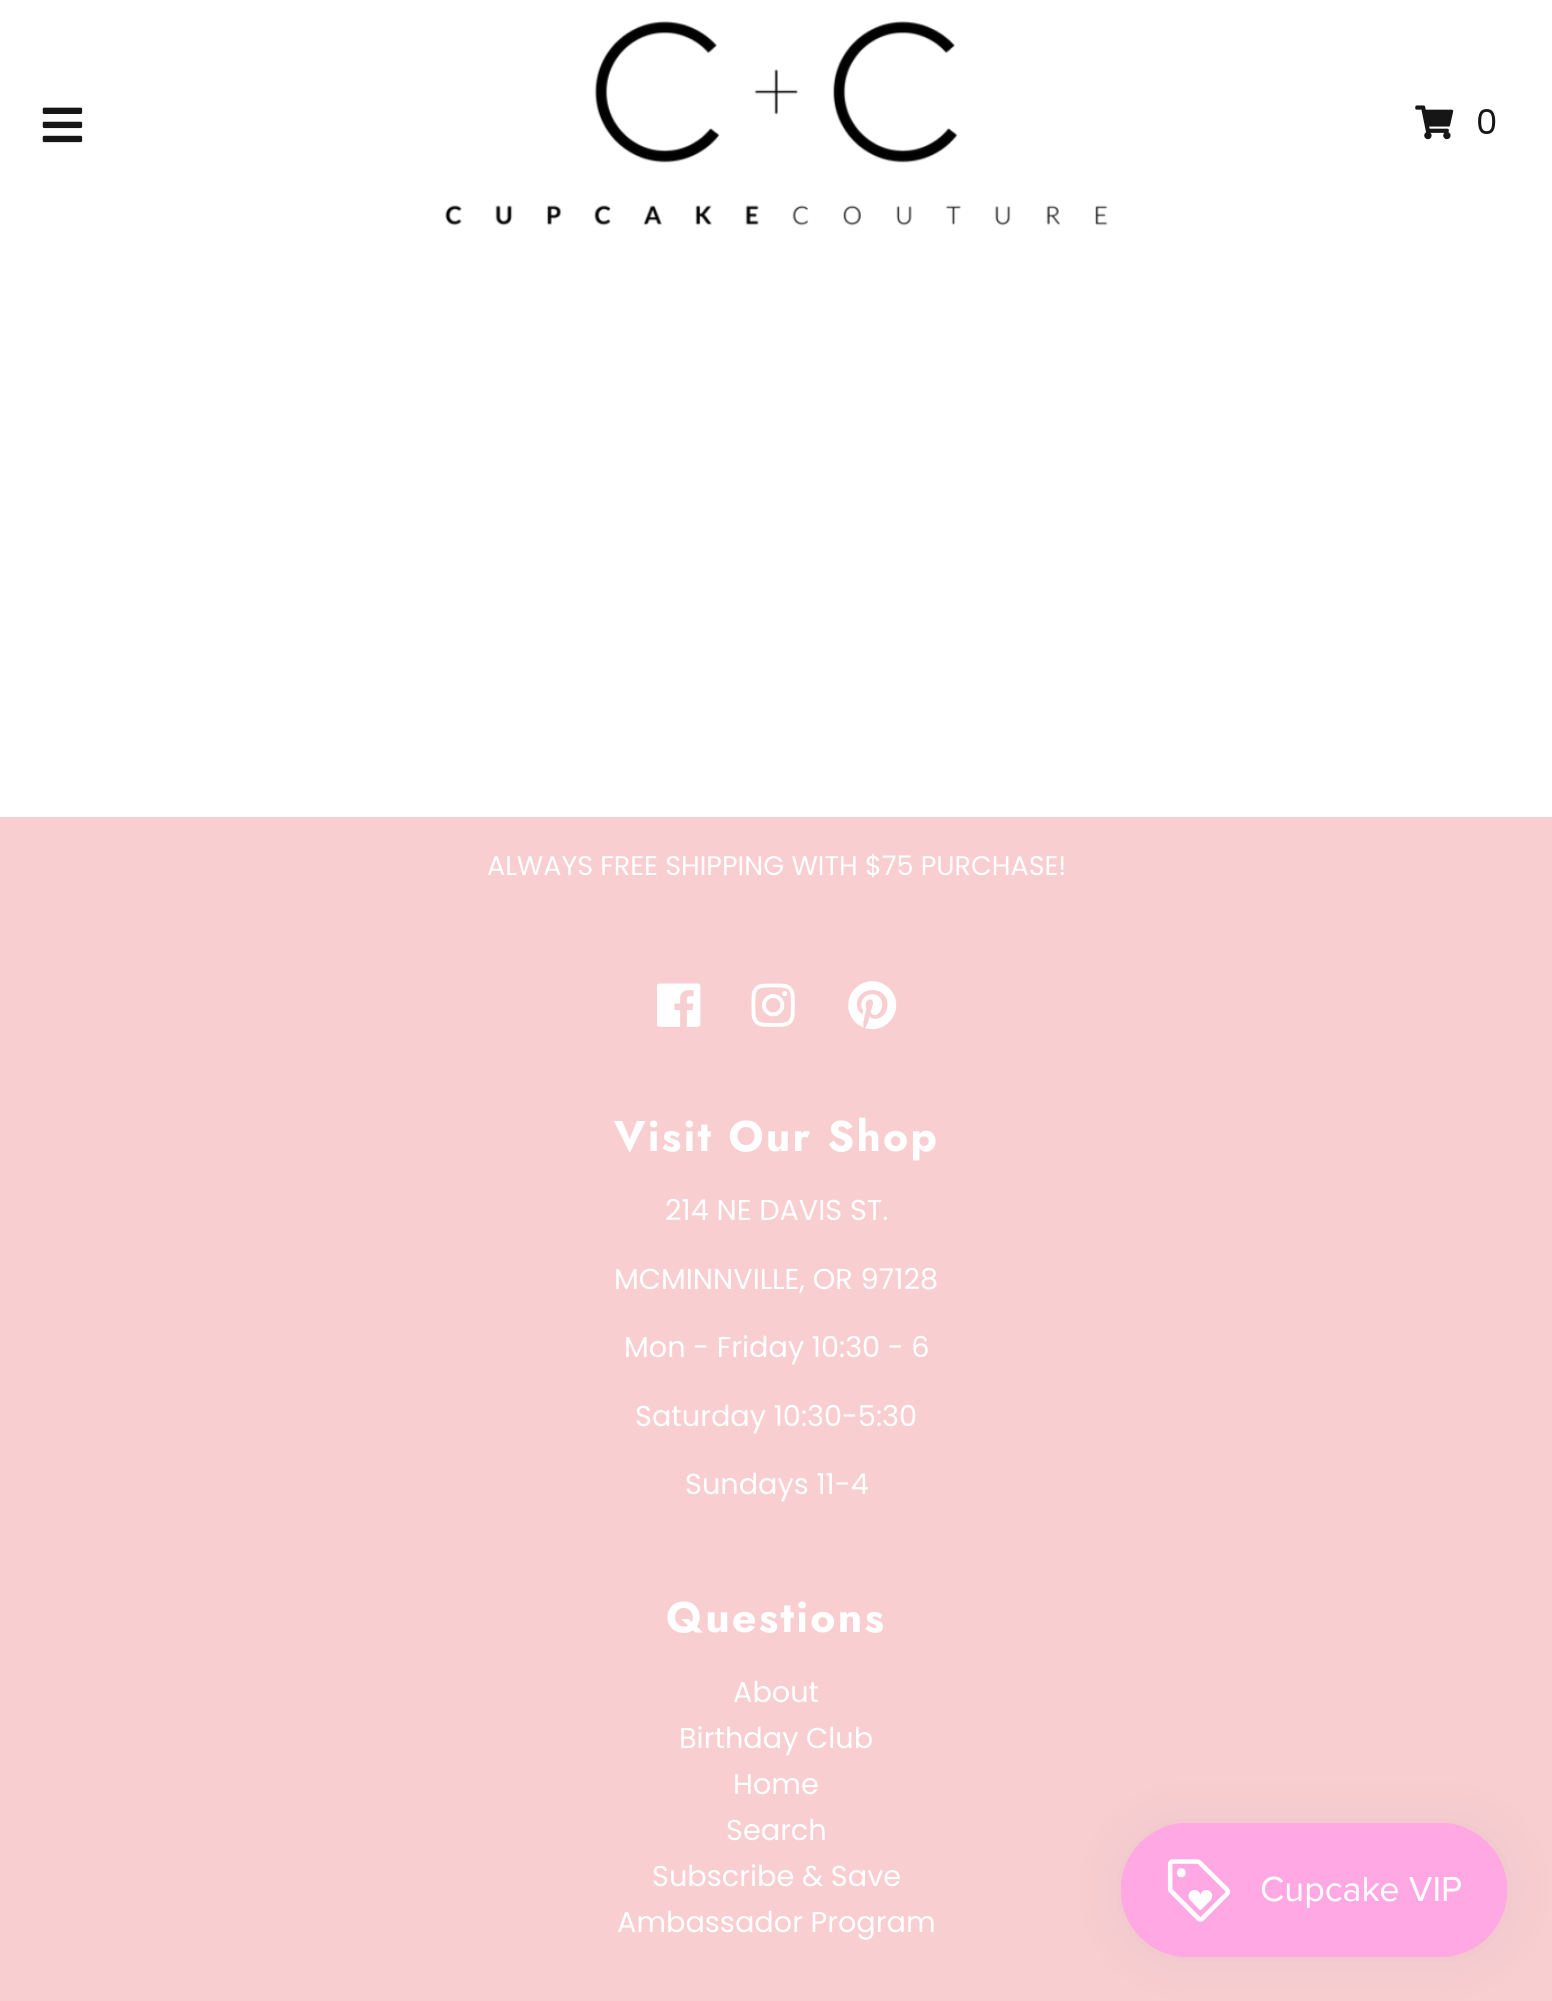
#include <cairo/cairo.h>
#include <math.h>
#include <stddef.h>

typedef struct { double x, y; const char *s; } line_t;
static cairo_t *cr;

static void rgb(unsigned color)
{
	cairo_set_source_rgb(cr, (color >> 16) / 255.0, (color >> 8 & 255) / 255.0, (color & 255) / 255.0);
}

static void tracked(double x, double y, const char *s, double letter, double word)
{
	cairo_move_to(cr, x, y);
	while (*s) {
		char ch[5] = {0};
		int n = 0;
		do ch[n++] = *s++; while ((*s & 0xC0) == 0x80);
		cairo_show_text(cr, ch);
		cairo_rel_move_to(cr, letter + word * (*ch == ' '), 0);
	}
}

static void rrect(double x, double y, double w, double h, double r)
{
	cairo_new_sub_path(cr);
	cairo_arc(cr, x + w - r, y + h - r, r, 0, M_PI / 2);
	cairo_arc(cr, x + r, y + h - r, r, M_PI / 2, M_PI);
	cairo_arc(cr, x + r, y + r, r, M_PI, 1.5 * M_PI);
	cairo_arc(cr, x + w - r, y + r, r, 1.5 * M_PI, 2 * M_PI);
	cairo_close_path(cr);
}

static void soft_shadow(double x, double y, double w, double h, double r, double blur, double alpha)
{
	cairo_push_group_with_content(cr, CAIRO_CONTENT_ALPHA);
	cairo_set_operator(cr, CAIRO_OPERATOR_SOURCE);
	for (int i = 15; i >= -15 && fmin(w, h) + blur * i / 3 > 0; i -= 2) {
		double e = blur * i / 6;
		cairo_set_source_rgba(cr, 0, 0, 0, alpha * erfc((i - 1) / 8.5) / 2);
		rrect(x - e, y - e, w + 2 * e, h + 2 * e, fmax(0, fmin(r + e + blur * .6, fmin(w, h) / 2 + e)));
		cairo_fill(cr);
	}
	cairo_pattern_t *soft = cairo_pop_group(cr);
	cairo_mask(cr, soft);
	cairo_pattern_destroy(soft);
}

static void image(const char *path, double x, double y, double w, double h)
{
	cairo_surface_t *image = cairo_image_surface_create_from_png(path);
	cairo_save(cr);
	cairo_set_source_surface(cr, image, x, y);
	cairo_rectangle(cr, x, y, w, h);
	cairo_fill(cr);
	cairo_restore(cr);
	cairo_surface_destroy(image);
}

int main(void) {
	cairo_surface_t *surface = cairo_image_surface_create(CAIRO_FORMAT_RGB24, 1552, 2001);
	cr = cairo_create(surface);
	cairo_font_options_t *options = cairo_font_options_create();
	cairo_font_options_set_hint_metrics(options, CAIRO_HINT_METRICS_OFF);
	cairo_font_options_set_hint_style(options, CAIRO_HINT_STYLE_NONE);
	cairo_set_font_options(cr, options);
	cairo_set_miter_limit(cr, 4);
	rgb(0xffffff);
	cairo_paint(cr);
	image("img/1.png", 42, 107, 41, 36);
	image("img/2.png", 444, 21, 664, 205);
	image("img/3.png", 1415, 105, 39, 35);
	rgb(0xf8ced1);
	cairo_rectangle(cr, 0, 817, 1552, 1184);
	cairo_fill(cr);
	image("img/4.png", 657, 983, 44, 44);
	image("img/5.png", 751, 983, 44, 44);
	image("img/6.png", 848, 981, 49, 49);
	rgb(0x000000);
	soft_shadow(1121, 1823, 387, 135, 67.5, 28, 0.05);
	image("img/7.png", 1121, 1823, 386, 134);
	cairo_select_font_face(cr, "Poppins", CAIRO_FONT_SLANT_NORMAL, CAIRO_FONT_WEIGHT_NORMAL);
	cairo_set_font_size(cr, 34);
	rgb(0x161616);
	tracked(1476, 134, "0", 2.25, 0);
	cairo_set_font_size(cr, 27);
	rgb(0xffffff);
	cairo_move_to(cr, 487, 875);
	cairo_show_text(cr, "ALWAYS FREE SHIPPING WITH $75 PURCHASE!");
	cairo_select_font_face(cr, "Jost", CAIRO_FONT_SLANT_NORMAL, CAIRO_FONT_WEIGHT_BOLD);
	cairo_set_font_size(cr, 42.75);
	tracked(614, 1151, "Visit Our Shop", 2.25, 0);
	cairo_select_font_face(cr, "Poppins", CAIRO_FONT_SLANT_NORMAL, CAIRO_FONT_WEIGHT_NORMAL);
	cairo_set_font_size(cr, 28.75);
	{
		static const line_t items[] = {
			{665, 1220, "214 NE DAVIS ST."},
			{614, 1289, "MCMINNVILLE, OR 97128"},
			{624, 1357, "Mon - Friday 10:30 - 6"},
			{635, 1426, "Saturday 10:30-5:30"},
			{685, 1494, "Sundays 11-4"},
		};
		for (size_t i = 0; i < sizeof items / sizeof *items; i++) {
			cairo_move_to(cr, items[i].x, items[i].y);
			cairo_show_text(cr, items[i].s);
		}
	}
	cairo_select_font_face(cr, "Jost", CAIRO_FONT_SLANT_NORMAL, CAIRO_FONT_WEIGHT_BOLD);
	cairo_set_font_size(cr, 42.75);
	tracked(666, 1632, "Questions", 2.25, 0);
	cairo_select_font_face(cr, "Poppins", CAIRO_FONT_SLANT_NORMAL, CAIRO_FONT_WEIGHT_NORMAL);
	cairo_set_font_size(cr, 28.75);
	{
		static const line_t items[] = {
			{733, 1702, "About"},
			{679, 1748, "Birthday Club"},
			{733, 1794, "Home"},
			{726, 1840, "Search"},
			{652, 1886, "Subscribe & Save"},
			{617, 1932, "Ambassador Program"},
		};
		for (size_t i = 0; i < sizeof items / sizeof *items; i++) {
			cairo_move_to(cr, items[i].x, items[i].y);
			cairo_show_text(cr, items[i].s);
		}
	}
	cairo_surface_write_to_png(surface, "page.png");
	cairo_font_options_destroy(options);
	cairo_destroy(cr);
	cairo_surface_destroy(surface);
	return 0;
}
